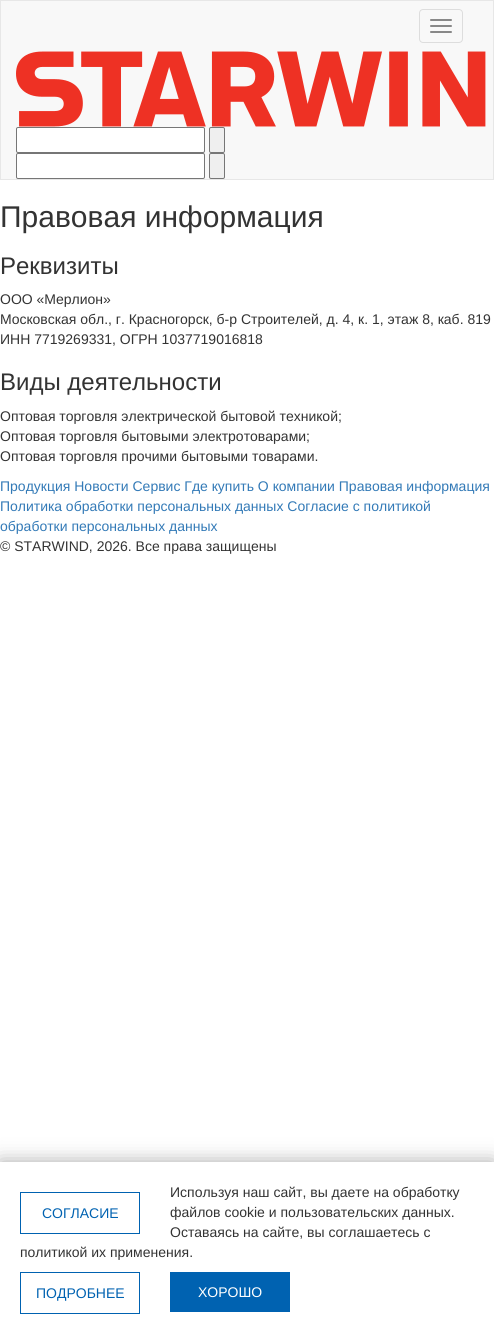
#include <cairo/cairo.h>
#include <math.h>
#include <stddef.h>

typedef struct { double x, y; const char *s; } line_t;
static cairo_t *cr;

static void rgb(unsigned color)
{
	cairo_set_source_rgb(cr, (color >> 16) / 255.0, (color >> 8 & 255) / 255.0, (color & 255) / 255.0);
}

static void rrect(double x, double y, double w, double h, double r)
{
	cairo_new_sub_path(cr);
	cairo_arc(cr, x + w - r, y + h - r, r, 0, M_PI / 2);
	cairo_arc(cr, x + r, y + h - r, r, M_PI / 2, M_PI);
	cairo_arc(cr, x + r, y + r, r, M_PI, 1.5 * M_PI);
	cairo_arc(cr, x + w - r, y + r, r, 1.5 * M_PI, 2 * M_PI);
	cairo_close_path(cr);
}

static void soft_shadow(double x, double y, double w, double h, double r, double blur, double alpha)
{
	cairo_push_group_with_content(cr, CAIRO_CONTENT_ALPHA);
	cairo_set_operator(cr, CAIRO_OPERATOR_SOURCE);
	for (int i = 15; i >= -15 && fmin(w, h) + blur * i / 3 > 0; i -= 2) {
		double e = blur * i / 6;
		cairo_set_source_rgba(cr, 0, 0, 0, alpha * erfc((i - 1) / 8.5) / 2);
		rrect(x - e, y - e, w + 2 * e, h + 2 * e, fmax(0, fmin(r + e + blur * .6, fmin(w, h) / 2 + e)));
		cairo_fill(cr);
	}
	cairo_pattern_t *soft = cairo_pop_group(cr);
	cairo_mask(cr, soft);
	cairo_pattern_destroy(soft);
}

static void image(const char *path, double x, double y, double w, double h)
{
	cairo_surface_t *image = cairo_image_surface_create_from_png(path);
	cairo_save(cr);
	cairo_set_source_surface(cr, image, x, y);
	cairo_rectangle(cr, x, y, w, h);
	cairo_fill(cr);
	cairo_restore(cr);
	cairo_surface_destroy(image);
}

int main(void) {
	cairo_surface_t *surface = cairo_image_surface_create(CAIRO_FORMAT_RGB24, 494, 1334);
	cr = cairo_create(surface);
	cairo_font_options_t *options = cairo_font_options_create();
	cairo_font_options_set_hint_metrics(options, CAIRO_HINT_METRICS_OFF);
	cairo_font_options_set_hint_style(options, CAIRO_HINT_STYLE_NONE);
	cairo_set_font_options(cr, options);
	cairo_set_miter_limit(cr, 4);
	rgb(0xffffff);
	cairo_paint(cr);
	rgb(0xf8f8f8);
	cairo_rectangle(cr, 0.5, 0.5, 493, 179);
	cairo_fill_preserve(cr);
	rgb(0xe7e7e7);
	cairo_set_line_width(cr, 1);
	cairo_stroke(cr);
	rrect(419.5, 9.5, 43, 33, 3.5);
	rgb(0xdddddd);
	cairo_stroke(cr);
	rgb(0x888888);
	rrect(430, 19, 22, 2, 1);
	cairo_fill(cr);
	rrect(430, 25, 22, 2, 1);
	cairo_fill(cr);
	rrect(430, 31, 22, 2, 1);
	cairo_fill(cr);
	image("img/1.png", 16, 51, 470, 76);
	rgb(0xffffff);
	rrect(16.5, 127.5, 188, 25, 1.5);
	cairo_fill_preserve(cr);
	rgb(0x767676);
	cairo_stroke(cr);
	rgb(0xefefef);
	rrect(209.5, 127.5, 15, 25, 1.5);
	cairo_fill_preserve(cr);
	rgb(0x767676);
	cairo_stroke(cr);
	rgb(0xffffff);
	rrect(16.5, 153.5, 188, 25, 1.5);
	cairo_fill_preserve(cr);
	rgb(0x767676);
	cairo_stroke(cr);
	rgb(0xefefef);
	rrect(209.5, 153.5, 15, 25, 1.5);
	cairo_fill_preserve(cr);
	rgb(0x767676);
	cairo_stroke(cr);
	rgb(0x323232);
	soft_shadow(0, 1162, 494, 172, 0, 10, 0.41);
	rgb(0xffffff);
	cairo_rectangle(cr, 0, 1162, 494, 172);
	cairo_fill(cr);
	cairo_rectangle(cr, 20.5, 1192.5, 119, 41);
	rgb(0x0062b1);
	cairo_stroke(cr);
	cairo_rectangle(cr, 20.5, 1272.5, 119, 41);
	cairo_stroke(cr);
	cairo_rectangle(cr, 170, 1272, 120, 40);
	cairo_fill(cr);
	cairo_select_font_face(cr, "Liberation Sans", CAIRO_FONT_SLANT_NORMAL, CAIRO_FONT_WEIGHT_NORMAL);
	cairo_set_font_size(cr, 30);
	rgb(0x333333);
	cairo_move_to(cr, 0, 227);
	cairo_show_text(cr, "Правовая информация");
	cairo_set_font_size(cr, 24);
	cairo_move_to(cr, 0, 274);
	cairo_show_text(cr, "Реквизиты");
	cairo_set_font_size(cr, 14);
	{
		static const line_t items[] = {
			{0, 304, "ООО «Мерлион»"},
			{0, 324, "Московская обл., г. Красногорск, б-р Строителей, д. 4, к. 1, этаж 8, каб. 819"},
			{0, 344, "ИНН 7719269331, ОГРН 1037719016818"},
		};
		for (size_t i = 0; i < sizeof items / sizeof *items; i++) {
			cairo_move_to(cr, items[i].x, items[i].y);
			cairo_show_text(cr, items[i].s);
		}
	}
	cairo_set_font_size(cr, 24);
	cairo_move_to(cr, 0, 390);
	cairo_show_text(cr, "Виды деятельности");
	cairo_set_font_size(cr, 14);
	{
		static const line_t items[] = {
			{0, 421, "Оптовая торговля электрической бытовой техникой;"},
			{0, 441, "Оптовая торговля бытовыми электротоварами;"},
			{0, 461, "Оптовая торговля прочими бытовыми товарами."},
		};
		for (size_t i = 0; i < sizeof items / sizeof *items; i++) {
			cairo_move_to(cr, items[i].x, items[i].y);
			cairo_show_text(cr, items[i].s);
		}
	}
	rgb(0x337ab7);
	{
		static const line_t items[] = {
			{0, 491, "Продукция Новости Сервис Где купить О компании Правовая информация"},
			{0, 511, "Политика обработки персональных данных Согласие с политикой"},
			{0, 531, "обработки персональных данных"},
		};
		for (size_t i = 0; i < sizeof items / sizeof *items; i++) {
			cairo_move_to(cr, items[i].x, items[i].y);
			cairo_show_text(cr, items[i].s);
		}
	}
	rgb(0x333333);
	cairo_move_to(cr, 0, 551);
	cairo_show_text(cr, "© STARWIND, 2026. Все права защищены");
	cairo_move_to(cr, 170, 1197);
	cairo_show_text(cr, "Используя наш сайт, вы даете на обработку");
	rgb(0x0062b1);
	cairo_move_to(cr, 42, 1218);
	cairo_show_text(cr, "СОГЛАСИЕ");
	rgb(0x333333);
	{
		static const line_t items[] = {
			{170, 1217, "файлов cookie и пользовательских данных."},
			{170, 1237, "Оставаясь на сайте, вы соглашаетесь с"},
			{20, 1257, "политикой их применения."},
		};
		for (size_t i = 0; i < sizeof items / sizeof *items; i++) {
			cairo_move_to(cr, items[i].x, items[i].y);
			cairo_show_text(cr, items[i].s);
		}
	}
	rgb(0x0062b1);
	cairo_move_to(cr, 36, 1298);
	cairo_show_text(cr, "ПОДРОБНЕЕ");
	rgb(0xffffff);
	cairo_move_to(cr, 198, 1297);
	cairo_show_text(cr, "ХОРОШО");
	cairo_surface_write_to_png(surface, "page.png");
	cairo_font_options_destroy(options);
	cairo_destroy(cr);
	cairo_surface_destroy(surface);
	return 0;
}
